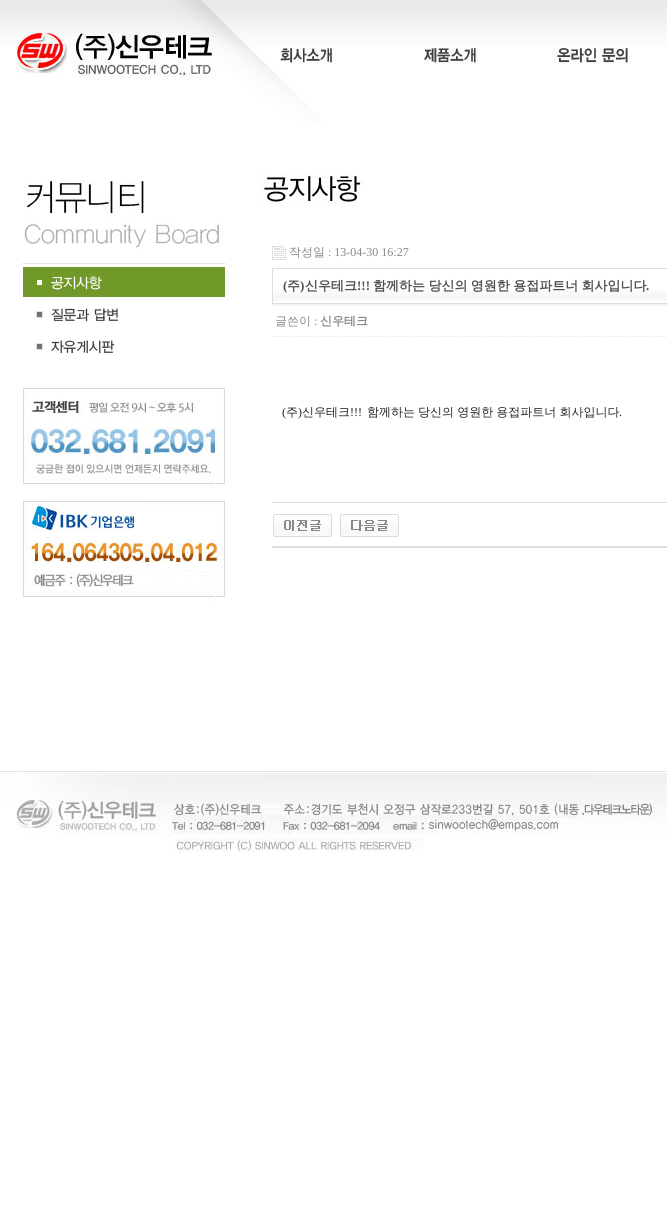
#include <cairo/cairo.h>
#include <math.h>
#include <stddef.h>

static cairo_t *cr;

static void rgb(unsigned color)
{
	cairo_set_source_rgb(cr, (color >> 16) / 255.0, (color >> 8 & 255) / 255.0, (color & 255) / 255.0);
}

static void tracked(double x, double y, const char *s, double letter, double word)
{
	cairo_move_to(cr, x, y);
	while (*s) {
		char ch[5] = {0};
		int n = 0;
		do ch[n++] = *s++; while ((*s & 0xC0) == 0x80);
		cairo_show_text(cr, ch);
		cairo_rel_move_to(cr, letter + word * (*ch == ' '), 0);
	}
}

static void image(const char *path, double x, double y, double w, double h)
{
	cairo_surface_t *image = cairo_image_surface_create_from_png(path);
	cairo_save(cr);
	cairo_set_source_surface(cr, image, x, y);
	cairo_rectangle(cr, x, y, w, h);
	cairo_fill(cr);
	cairo_restore(cr);
	cairo_surface_destroy(image);
}

int main(void) {
	cairo_surface_t *surface = cairo_image_surface_create(CAIRO_FORMAT_RGB24, 667, 1218);
	cr = cairo_create(surface);
	cairo_font_options_t *options = cairo_font_options_create();
	cairo_font_options_set_hint_metrics(options, CAIRO_HINT_METRICS_OFF);
	cairo_font_options_set_hint_style(options, CAIRO_HINT_STYLE_NONE);
	cairo_set_font_options(cr, options);
	cairo_set_miter_limit(cr, 4);
	rgb(0xffffff);
	cairo_paint(cr);
	image("img/1.png", 0, 0, 667, 124);
	image("img/2.png", 22, 181, 204, 83);
	image("img/3.png", 21, 266, 206, 32);
	image("img/4.png", 36, 308, 82, 14);
	image("img/5.png", 36, 340, 79, 14);
	image("img/6.png", 23, 388, 202, 96);
	image("img/7.png", 19, 499, 210, 103);
	image("img/8.png", 261, 173, 104, 32);
	image("img/9.png", 272, 246, 14, 14);
	image("img/10.png", 273, 290, 394, 11);
	cairo_rectangle(cr, 272.5, 268.5, 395, 35);
	rgb(0xdddddd);
	cairo_set_line_width(cr, 1);
	cairo_stroke(cr);
	image("img/11.png", 272, 304, 395, 2);
	image("img/12.png", 272, 336, 394, 1);
	cairo_rectangle(cr, 272, 502, 395, 1);
	cairo_fill(cr);
	image("img/13.png", 273, 514, 59, 23);
	image("img/14.png", 340, 514, 59, 23);
	rgb(0xdedede);
	cairo_rectangle(cr, 272, 546, 395, 2);
	cairo_fill(cr);
	image("img/15.png", 0, 771, 667, 81);
	cairo_select_font_face(cr, "WenQuanYi Zen Hei Medium", CAIRO_FONT_SLANT_NORMAL, CAIRO_FONT_WEIGHT_NORMAL);
	cairo_set_font_size(cr, 12);
	rgb(0x888888);
	cairo_move_to(cr, 289, 256);
	cairo_show_text(cr, "작성일");
	cairo_select_font_face(cr, "Liberation Serif", CAIRO_FONT_SLANT_NORMAL, CAIRO_FONT_WEIGHT_NORMAL);
	cairo_move_to(cr, 328, 256);
	cairo_show_text(cr, ": 13-04-30 16:27");
	cairo_select_font_face(cr, "Liberation Serif", CAIRO_FONT_SLANT_NORMAL, CAIRO_FONT_WEIGHT_BOLD);
	cairo_set_font_size(cr, 13);
	rgb(0x505050);
	cairo_move_to(cr, 283, 290);
	cairo_show_text(cr, "(");
	cairo_select_font_face(cr, "WenQuanYi Zen Hei", CAIRO_FONT_SLANT_NORMAL, CAIRO_FONT_WEIGHT_BOLD);
	cairo_move_to(cr, 287, 290);
	cairo_show_text(cr, "주");
	cairo_select_font_face(cr, "Liberation Serif", CAIRO_FONT_SLANT_NORMAL, CAIRO_FONT_WEIGHT_BOLD);
	cairo_move_to(cr, 300, 290);
	cairo_show_text(cr, ")");
	cairo_select_font_face(cr, "WenQuanYi Zen Hei", CAIRO_FONT_SLANT_NORMAL, CAIRO_FONT_WEIGHT_BOLD);
	cairo_move_to(cr, 305, 290);
	cairo_show_text(cr, "신우테크");
	cairo_select_font_face(cr, "Liberation Serif", CAIRO_FONT_SLANT_NORMAL, CAIRO_FONT_WEIGHT_BOLD);
	cairo_move_to(cr, 357, 290);
	cairo_show_text(cr, "!!!");
	cairo_select_font_face(cr, "WenQuanYi Zen Hei", CAIRO_FONT_SLANT_NORMAL, CAIRO_FONT_WEIGHT_BOLD);
	tracked(373, 290, "함께하는 당신의 영원한 용접파트너 회사입니다", 0, -0.5);
	cairo_select_font_face(cr, "Liberation Serif", CAIRO_FONT_SLANT_NORMAL, CAIRO_FONT_WEIGHT_BOLD);
	cairo_move_to(cr, 646, 290);
	cairo_show_text(cr, ".");
	cairo_select_font_face(cr, "WenQuanYi Zen Hei Medium", CAIRO_FONT_SLANT_NORMAL, CAIRO_FONT_WEIGHT_NORMAL);
	cairo_set_font_size(cr, 12);
	rgb(0x888888);
	cairo_move_to(cr, 275, 325);
	cairo_show_text(cr, "글쓴이");
	cairo_select_font_face(cr, "Liberation Serif", CAIRO_FONT_SLANT_NORMAL, CAIRO_FONT_WEIGHT_NORMAL);
	cairo_move_to(cr, 314, 325);
	cairo_show_text(cr, ":");
	cairo_select_font_face(cr, "WenQuanYi Zen Hei", CAIRO_FONT_SLANT_NORMAL, CAIRO_FONT_WEIGHT_BOLD);
	cairo_move_to(cr, 320, 325);
	cairo_show_text(cr, "신우테크");
	cairo_select_font_face(cr, "Liberation Serif", CAIRO_FONT_SLANT_NORMAL, CAIRO_FONT_WEIGHT_NORMAL);
	rgb(0x222222);
	cairo_move_to(cr, 282, 416);
	cairo_show_text(cr, "(");
	cairo_select_font_face(cr, "WenQuanYi Zen Hei Medium", CAIRO_FONT_SLANT_NORMAL, CAIRO_FONT_WEIGHT_NORMAL);
	cairo_move_to(cr, 286, 416);
	cairo_show_text(cr, "주");
	cairo_select_font_face(cr, "Liberation Serif", CAIRO_FONT_SLANT_NORMAL, CAIRO_FONT_WEIGHT_NORMAL);
	cairo_move_to(cr, 298, 416);
	cairo_show_text(cr, ")");
	cairo_select_font_face(cr, "WenQuanYi Zen Hei Medium", CAIRO_FONT_SLANT_NORMAL, CAIRO_FONT_WEIGHT_NORMAL);
	cairo_move_to(cr, 302, 416);
	cairo_show_text(cr, "신우테크");
	cairo_select_font_face(cr, "Liberation Serif", CAIRO_FONT_SLANT_NORMAL, CAIRO_FONT_WEIGHT_NORMAL);
	cairo_move_to(cr, 350, 416);
	cairo_show_text(cr, "!!!");
	cairo_select_font_face(cr, "WenQuanYi Zen Hei Medium", CAIRO_FONT_SLANT_NORMAL, CAIRO_FONT_WEIGHT_NORMAL);
	tracked(367, 416, "함께하는 당신의 영원한 용접파트너 회사입니다", 0, -0.5);
	cairo_select_font_face(cr, "Liberation Serif", CAIRO_FONT_SLANT_NORMAL, CAIRO_FONT_WEIGHT_NORMAL);
	cairo_move_to(cr, 619, 416);
	cairo_show_text(cr, ".");
	cairo_surface_write_to_png(surface, "page.png");
	cairo_font_options_destroy(options);
	cairo_destroy(cr);
	cairo_surface_destroy(surface);
	return 0;
}
